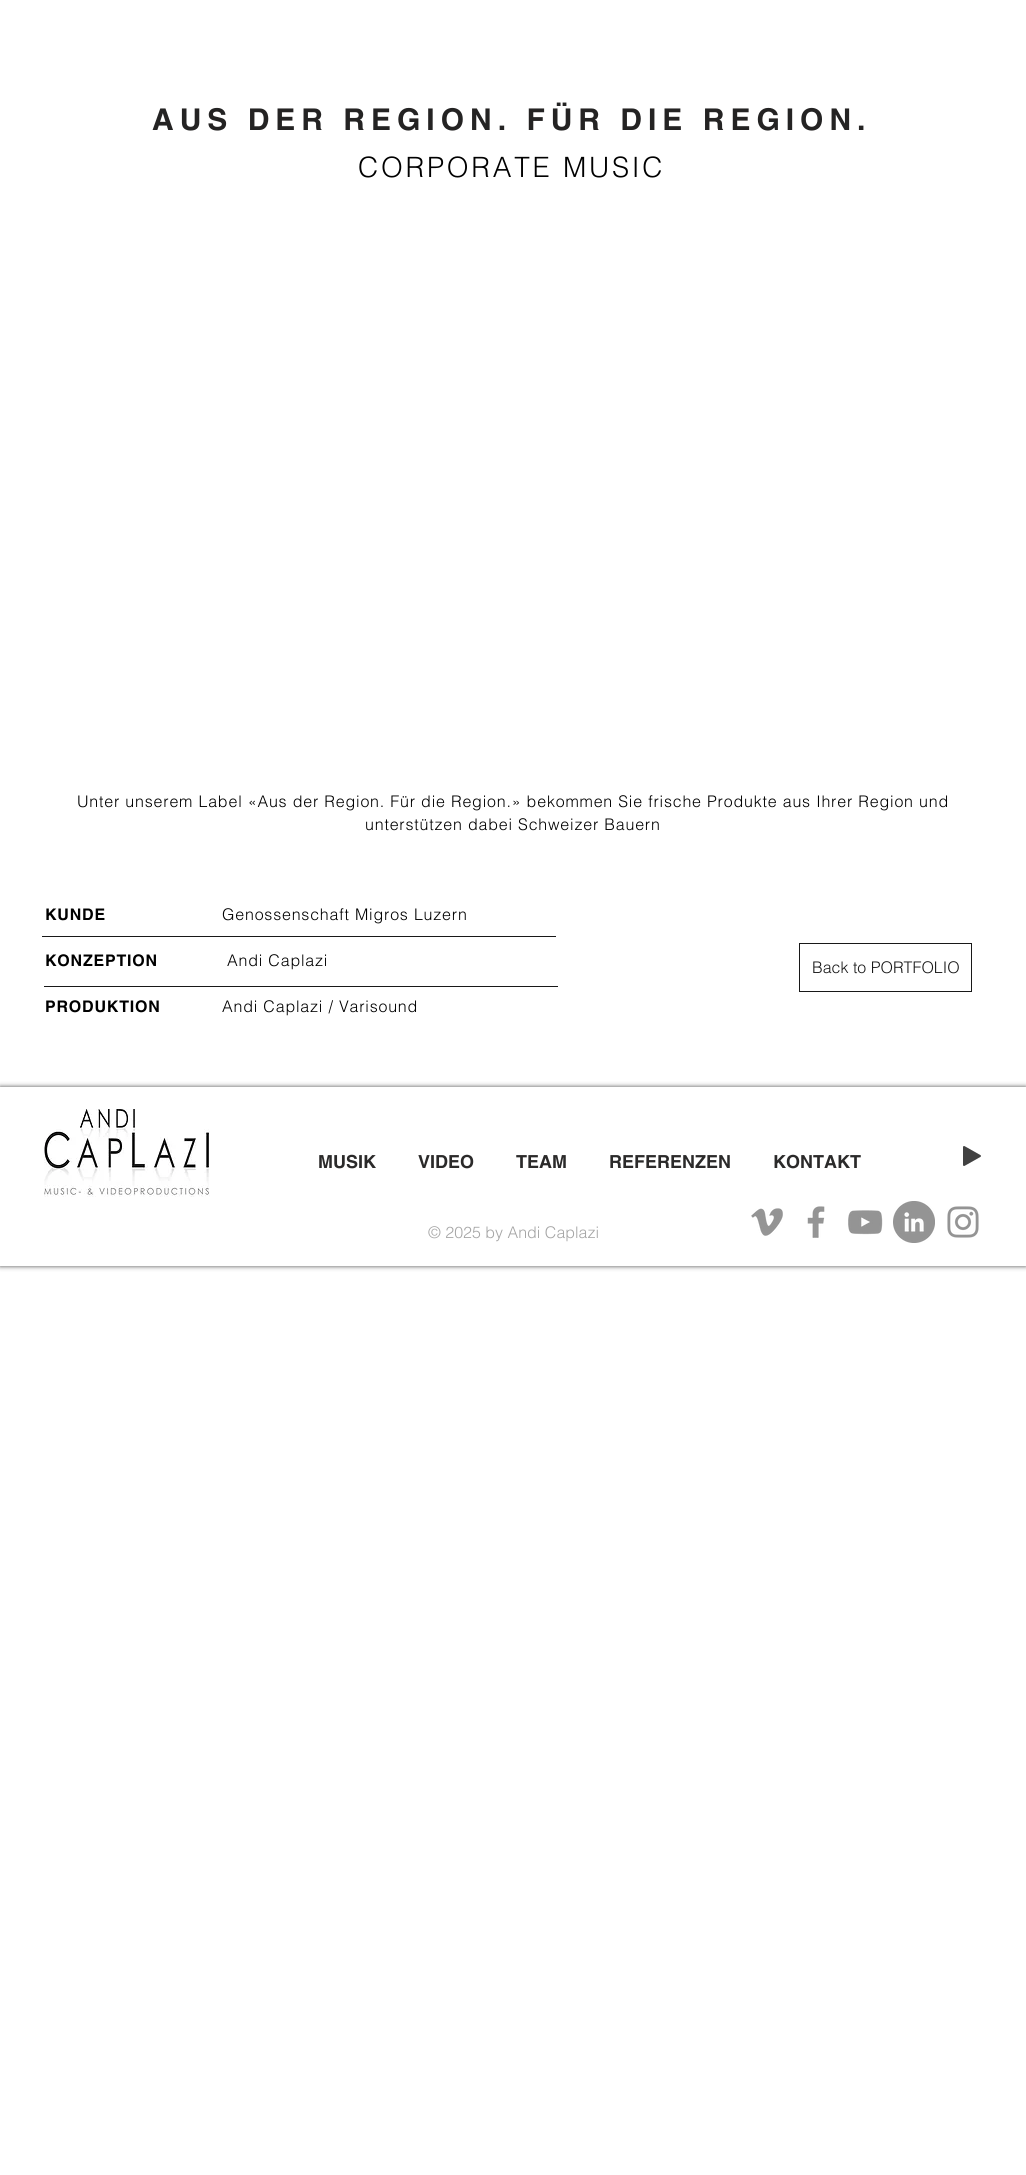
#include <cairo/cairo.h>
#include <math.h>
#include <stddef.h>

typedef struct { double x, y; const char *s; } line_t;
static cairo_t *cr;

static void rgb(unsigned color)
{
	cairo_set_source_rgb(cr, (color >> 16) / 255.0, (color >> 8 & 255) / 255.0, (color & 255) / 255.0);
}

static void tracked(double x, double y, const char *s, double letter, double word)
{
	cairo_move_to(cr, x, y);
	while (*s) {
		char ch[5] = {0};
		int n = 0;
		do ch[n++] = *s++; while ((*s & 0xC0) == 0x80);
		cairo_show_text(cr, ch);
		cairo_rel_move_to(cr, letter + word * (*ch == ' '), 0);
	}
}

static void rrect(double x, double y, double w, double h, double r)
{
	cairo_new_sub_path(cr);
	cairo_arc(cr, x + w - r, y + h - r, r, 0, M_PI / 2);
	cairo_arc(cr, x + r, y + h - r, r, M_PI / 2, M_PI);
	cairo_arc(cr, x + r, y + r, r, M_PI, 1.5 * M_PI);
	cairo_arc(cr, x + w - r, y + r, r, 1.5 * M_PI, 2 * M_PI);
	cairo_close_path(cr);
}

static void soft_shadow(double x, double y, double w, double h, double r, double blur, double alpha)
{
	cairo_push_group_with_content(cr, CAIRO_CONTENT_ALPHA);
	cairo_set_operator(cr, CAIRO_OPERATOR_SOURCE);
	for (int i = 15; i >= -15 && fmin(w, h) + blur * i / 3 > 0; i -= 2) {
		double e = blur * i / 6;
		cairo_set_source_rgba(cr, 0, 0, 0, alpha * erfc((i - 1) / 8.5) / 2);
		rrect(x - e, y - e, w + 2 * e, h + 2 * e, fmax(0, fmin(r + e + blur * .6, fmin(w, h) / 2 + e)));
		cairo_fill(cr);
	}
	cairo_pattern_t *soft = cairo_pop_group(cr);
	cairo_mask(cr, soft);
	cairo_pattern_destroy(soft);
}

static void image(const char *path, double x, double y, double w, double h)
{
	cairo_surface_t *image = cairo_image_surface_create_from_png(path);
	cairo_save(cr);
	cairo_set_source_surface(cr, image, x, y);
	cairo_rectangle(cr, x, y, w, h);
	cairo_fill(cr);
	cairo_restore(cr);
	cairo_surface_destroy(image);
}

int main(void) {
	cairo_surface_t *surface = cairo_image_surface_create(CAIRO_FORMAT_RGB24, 1026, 2175);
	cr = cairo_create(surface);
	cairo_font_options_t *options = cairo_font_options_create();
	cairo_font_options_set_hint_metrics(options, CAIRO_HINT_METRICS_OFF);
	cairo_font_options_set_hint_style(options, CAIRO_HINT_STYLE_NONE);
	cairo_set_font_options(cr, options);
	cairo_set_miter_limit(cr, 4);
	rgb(0xffffff);
	cairo_paint(cr);
	rgb(0x181818);
	cairo_rectangle(cr, 42, 936, 514, 1);
	cairo_fill(cr);
	cairo_rectangle(cr, 799.5, 943.5, 172, 48);
	cairo_set_line_width(cr, 1);
	cairo_stroke(cr);
	cairo_rectangle(cr, 44, 986, 514, 1);
	cairo_fill(cr);
	cairo_save(cr);
	cairo_set_fill_rule(cr, CAIRO_FILL_RULE_EVEN_ODD);
	cairo_new_path(cr);
	cairo_move_to(cr, 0, 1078);
	cairo_line_to(cr, 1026, 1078);
	cairo_line_to(cr, 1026, 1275);
	cairo_line_to(cr, 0, 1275);
	cairo_close_path(cr);
	cairo_move_to(cr, 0, 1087);
	cairo_line_to(cr, 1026, 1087);
	cairo_line_to(cr, 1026, 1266);
	cairo_line_to(cr, 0, 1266);
	cairo_close_path(cr);
	cairo_clip(cr);
	rgb(0x000000);
	soft_shadow(0, 1087, 1026, 179, 0, 2.5, 0.7);
	cairo_restore(cr);
	image("img/1.png", 44, 1109, 166, 88);
	image("img/2.png", 963, 1146, 18, 20);
	image("img/3.png", 751, 1208, 32, 28);
	image("img/4.png", 807, 1206, 18, 32);
	image("img/5.png", 848, 1210, 35, 25);
	image("img/6.png", 893, 1201, 42, 42);
	image("img/7.png", 947, 1206, 32, 32);
	cairo_select_font_face(cr, "helvetica", CAIRO_FONT_SLANT_NORMAL, CAIRO_FONT_WEIGHT_BOLD);
	cairo_set_font_size(cr, 30);
	rgb(0x242323);
	tracked(152, 130, "AUS DER REGION. FÜR DIE REGION.", 6, 0);
	cairo_select_font_face(cr, "helvetica Light", CAIRO_FONT_SLANT_NORMAL, CAIRO_FONT_WEIGHT_NORMAL);
	cairo_set_font_size(cr, 28);
	rgb(0x000000);
	tracked(358, 177, "CORPORATE MUSIC", 2.75, 0);
	cairo_set_font_size(cr, 16);
	tracked(77, 807, "Unter unserem Label «Aus der Region. Für die Region.» bekommen Sie frische Produkte aus Ihrer Region und", 0.8, 0);
	tracked(365, 830, "unterstützen dabei Schweizer Bauern", 0.8, 0);
	cairo_select_font_face(cr, "helvetica", CAIRO_FONT_SLANT_NORMAL, CAIRO_FONT_WEIGHT_BOLD);
	{
		static const line_t items[] = {
			{45, 920, "KUNDE"},
			{45, 966, "KONZEPTION"},
			{45, 1012, "PRODUKTION"},
		};
		for (size_t i = 0; i < sizeof items / sizeof *items; i++) {
			tracked(items[i].x, items[i].y, items[i].s, 0.8, 0);
		}
	}
	cairo_select_font_face(cr, "helvetica Light", CAIRO_FONT_SLANT_NORMAL, CAIRO_FONT_WEIGHT_NORMAL);
	{
		static const line_t items[] = {
			{222, 920, "Genossenschaft Migros Luzern"},
			{227, 966, "Andi Caplazi"},
			{222, 1012, "Andi Caplazi / Varisound"},
		};
		for (size_t i = 0; i < sizeof items / sizeof *items; i++) {
			tracked(items[i].x, items[i].y, items[i].s, 0.8, 0);
		}
	}
	rgb(0x181818);
	cairo_move_to(cr, 812, 973);
	cairo_show_text(cr, "Back to PORTFOLIO");
	cairo_select_font_face(cr, "helvetica", CAIRO_FONT_SLANT_NORMAL, CAIRO_FONT_WEIGHT_BOLD);
	cairo_set_font_size(cr, 18);
	rgb(0x2b2a2a);
	{
		static const line_t items[] = {
			{318, 1168, "MUSIK"},
			{418, 1168, "VIDEO"},
			{516, 1168, "TEAM"},
			{609, 1168, "REFERENZEN"},
			{773, 1168, "KONTAKT"},
		};
		for (size_t i = 0; i < sizeof items / sizeof *items; i++) {
			cairo_move_to(cr, items[i].x, items[i].y);
			cairo_show_text(cr, items[i].s);
		}
	}
	cairo_select_font_face(cr, "helvetica Light", CAIRO_FONT_SLANT_NORMAL, CAIRO_FONT_WEIGHT_NORMAL);
	cairo_set_font_size(cr, 16);
	rgb(0xa5a5a5);
	cairo_move_to(cr, 428, 1238);
	cairo_show_text(cr, "© 2025 by Andi Caplazi");
	cairo_surface_write_to_png(surface, "page.png");
	cairo_font_options_destroy(options);
	cairo_destroy(cr);
	cairo_surface_destroy(surface);
	return 0;
}
